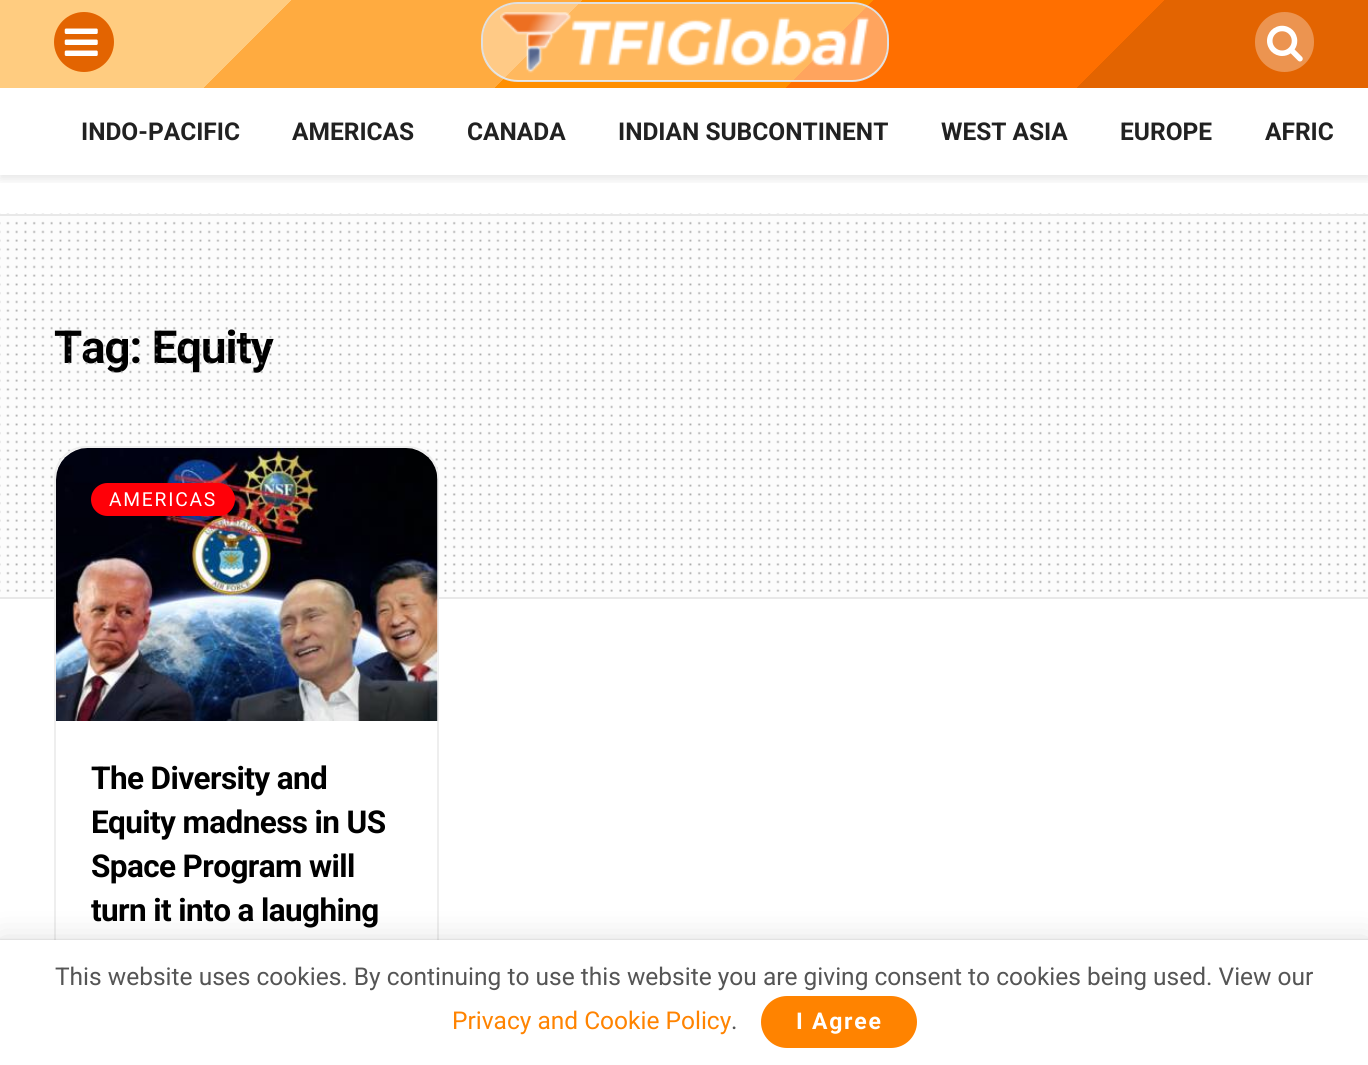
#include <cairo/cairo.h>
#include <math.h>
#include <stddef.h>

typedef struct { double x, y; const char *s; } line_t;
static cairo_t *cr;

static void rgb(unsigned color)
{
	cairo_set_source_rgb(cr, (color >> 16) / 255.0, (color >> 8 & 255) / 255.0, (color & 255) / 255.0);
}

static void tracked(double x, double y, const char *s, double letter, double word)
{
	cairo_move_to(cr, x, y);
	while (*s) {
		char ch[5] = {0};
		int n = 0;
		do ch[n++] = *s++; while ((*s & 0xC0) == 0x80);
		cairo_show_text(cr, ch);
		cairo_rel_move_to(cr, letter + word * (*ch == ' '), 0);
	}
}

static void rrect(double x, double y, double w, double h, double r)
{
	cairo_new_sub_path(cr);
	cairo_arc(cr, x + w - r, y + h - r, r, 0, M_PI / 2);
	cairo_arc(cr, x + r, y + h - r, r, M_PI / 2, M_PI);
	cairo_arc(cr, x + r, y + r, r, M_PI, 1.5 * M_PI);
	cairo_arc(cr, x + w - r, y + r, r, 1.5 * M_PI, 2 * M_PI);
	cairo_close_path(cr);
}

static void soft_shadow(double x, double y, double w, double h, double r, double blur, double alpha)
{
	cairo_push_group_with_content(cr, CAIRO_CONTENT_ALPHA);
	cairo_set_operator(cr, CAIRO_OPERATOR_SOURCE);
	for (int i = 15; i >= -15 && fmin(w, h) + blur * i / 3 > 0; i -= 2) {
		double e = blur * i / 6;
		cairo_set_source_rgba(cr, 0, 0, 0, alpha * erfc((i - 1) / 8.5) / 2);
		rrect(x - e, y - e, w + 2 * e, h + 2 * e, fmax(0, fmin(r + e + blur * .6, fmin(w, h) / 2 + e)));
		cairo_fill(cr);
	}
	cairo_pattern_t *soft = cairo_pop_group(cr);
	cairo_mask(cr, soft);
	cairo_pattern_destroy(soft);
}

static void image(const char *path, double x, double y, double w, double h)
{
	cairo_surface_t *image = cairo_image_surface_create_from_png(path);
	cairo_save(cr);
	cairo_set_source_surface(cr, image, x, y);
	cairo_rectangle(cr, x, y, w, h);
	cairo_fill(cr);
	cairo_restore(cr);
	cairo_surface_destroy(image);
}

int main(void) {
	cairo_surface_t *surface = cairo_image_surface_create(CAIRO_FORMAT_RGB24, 1368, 1065);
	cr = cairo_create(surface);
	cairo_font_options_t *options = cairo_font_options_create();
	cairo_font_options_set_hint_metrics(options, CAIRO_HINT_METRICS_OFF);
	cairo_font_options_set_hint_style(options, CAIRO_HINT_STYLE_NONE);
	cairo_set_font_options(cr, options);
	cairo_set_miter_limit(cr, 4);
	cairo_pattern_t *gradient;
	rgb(0xffffff);
	cairo_paint(cr);
	rgb(0xfcfcfc);
	cairo_rectangle(cr, 0, 216, 1368, 381);
	cairo_fill(cr);
	cairo_save(cr);
	cairo_rectangle(cr, 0, 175, 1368, 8);
	cairo_clip(cr);
	rgb(0x000000);
	soft_shadow(0, 4, 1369, 175, 0, 5, 0.1);
	cairo_restore(cr);
	gradient = cairo_pattern_create_linear(320, -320, 1048, 408);
	cairo_pattern_add_color_stop_rgba(gradient, 0, 1, 0.8, 0.502, 1);
	cairo_pattern_add_color_stop_rgba(gradient, 0.2, 1, 0.8, 0.502, 1);
	cairo_pattern_add_color_stop_rgba(gradient, 0.2, 1, 0.671, 0.251, 1);
	cairo_pattern_add_color_stop_rgba(gradient, 0.4, 1, 0.671, 0.251, 1);
	cairo_pattern_add_color_stop_rgba(gradient, 0.4, 1, 0.561, 0, 1);
	cairo_pattern_add_color_stop_rgba(gradient, 0.6, 1, 0.561, 0, 1);
	cairo_pattern_add_color_stop_rgba(gradient, 0.6, 1, 0.435, 0, 1);
	cairo_pattern_add_color_stop_rgba(gradient, 0.8, 1, 0.435, 0, 1);
	cairo_pattern_add_color_stop_rgba(gradient, 0.8, 0.89, 0.392, 0.004, 1);
	cairo_pattern_add_color_stop_rgba(gradient, 1, 0.89, 0.392, 0.004, 1);
	cairo_set_source(cr, gradient);
	cairo_pattern_destroy(gradient);
	cairo_rectangle(cr, 0, 0, 1368, 88);
	cairo_fill(cr);
	rgb(0xe36401);
	cairo_arc(cr, 84, 42, 30, 0, 2 * M_PI);
	cairo_fill(cr);
	image("img/1.png", 64, 28, 34, 28);
	rrect(482, 3, 406, 78, 36);
	rgb(0xe0e0e0);
	cairo_stroke(cr);
	cairo_set_source_rgba(cr, 1, 1, 1, 0.37);
	rrect(483, 4, 404, 77, 35);
	cairo_fill(cr);
	image("img/2.png", 500, 12, 71, 61);
	image("img/3.png", 571, 17, 299, 50);
	rgb(0xec9450);
	rrect(1255, 12, 59, 60, 29.5);
	cairo_fill(cr);
	image("img/4.png", 1267, 25, 36, 37);
	rgb(0xe8e8e8);
	cairo_rectangle(cr, 0, 597, 1368, 2);
	cairo_fill(cr);
	cairo_select_font_face(cr, "Roboto", CAIRO_FONT_SLANT_NORMAL, CAIRO_FONT_WEIGHT_BOLD);
	cairo_set_font_size(cr, 24.5);
	rgb(0x212121);
	{
		static const line_t items[] = {
			{81, 140, "INDO-PACIFIC"},
			{292, 140, "AMERICAS"},
			{467, 140, "CANADA"},
			{618, 140, "INDIAN SUBCONTINENT"},
			{941, 140, "WEST ASIA"},
			{1120, 140, "EUROPE"},
			{1265, 140, "AFRIC"},
		};
		for (size_t i = 0; i < sizeof items / sizeof *items; i++) {
			cairo_move_to(cr, items[i].x, items[i].y);
			cairo_show_text(cr, items[i].s);
		}
	}
	cairo_set_font_size(cr, 45.5);
	rgb(0x000000);
	tracked(54, 363, "Tag: Equity", -1, 0);
	image("img/5.png", 0, 213, 1366, 379);
	rgb(0xe8e8e8);
	cairo_rectangle(cr, 0, 214, 1368, 2);
	cairo_fill(cr);
	rgb(0xffffff);
	rrect(55, 447, 383, 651, 31);
	cairo_fill_preserve(cr);
	rgb(0xeeeeee);
	cairo_stroke(cr);
	rgb(0xf7f7f7);
	cairo_new_path(cr);
	cairo_move_to(cr, 88, 448);
	cairo_line_to(cr, 406, 448);
	cairo_curve_to(cr, 423.5, 448, 438, 462.5, 438, 480);
	cairo_line_to(cr, 438, 721);
	cairo_line_to(cr, 56, 721);
	cairo_line_to(cr, 56, 480);
	cairo_curve_to(cr, 56, 462.5, 70.5, 448, 88, 448);
	cairo_close_path(cr);
	cairo_fill(cr);
	image("img/6.png", 56, 448, 382, 273);
	rgb(0xff0008);
	rrect(91, 483, 144, 33, 16.5);
	cairo_fill(cr);
	cairo_select_font_face(cr, "Roboto", CAIRO_FONT_SLANT_NORMAL, CAIRO_FONT_WEIGHT_NORMAL);
	cairo_set_font_size(cr, 19.25);
	rgb(0xffffff);
	tracked(109, 506, "AMERICAS", 1.75, 0);
	cairo_select_font_face(cr, "Roboto", CAIRO_FONT_SLANT_NORMAL, CAIRO_FONT_WEIGHT_BOLD);
	cairo_set_font_size(cr, 31.5);
	rgb(0x000000);
	{
		static const line_t items[] = {
			{91, 789, "The Diversity and"},
			{91, 833, "Equity madness in US"},
			{91, 877, "Space Program will"},
			{91, 921, "turn it into a laughing"},
		};
		for (size_t i = 0; i < sizeof items / sizeof *items; i++) {
			tracked(items[i].x, items[i].y, items[i].s, -0.6, 0);
		}
	}
	rgb(0x000000);
	soft_shadow(0, 943, 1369, 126, 0, 17.5, 0.15);
	soft_shadow(0, 940, 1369, 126, 0, 1, 0.2);
	rgb(0xffffff);
	cairo_rectangle(cr, 0, 940, 1368, 125);
	cairo_fill(cr);
	cairo_select_font_face(cr, "Roboto", CAIRO_FONT_SLANT_NORMAL, CAIRO_FONT_WEIGHT_NORMAL);
	cairo_set_font_size(cr, 24.5);
	rgb(0x555555);
	cairo_move_to(cr, 55, 985);
	cairo_show_text(cr, "This website uses cookies. By continuing to use this website you are giving consent to cookies being used. View our");
	rgb(0xff8300);
	cairo_move_to(cr, 452, 1029);
	cairo_show_text(cr, "Privacy and Cookie Policy");
	rgb(0x555555);
	cairo_move_to(cr, 731, 1029);
	cairo_show_text(cr, ".");
	rgb(0xff8300);
	rrect(761, 996, 156, 52, 26);
	cairo_fill(cr);
	cairo_select_font_face(cr, "Roboto", CAIRO_FONT_SLANT_NORMAL, CAIRO_FONT_WEIGHT_BOLD);
	cairo_set_font_size(cr, 23);
	rgb(0xffffff);
	tracked(796, 1029, "I Agree", 1.75, 0);
	cairo_surface_write_to_png(surface, "page.png");
	cairo_font_options_destroy(options);
	cairo_destroy(cr);
	cairo_surface_destroy(surface);
	return 0;
}
